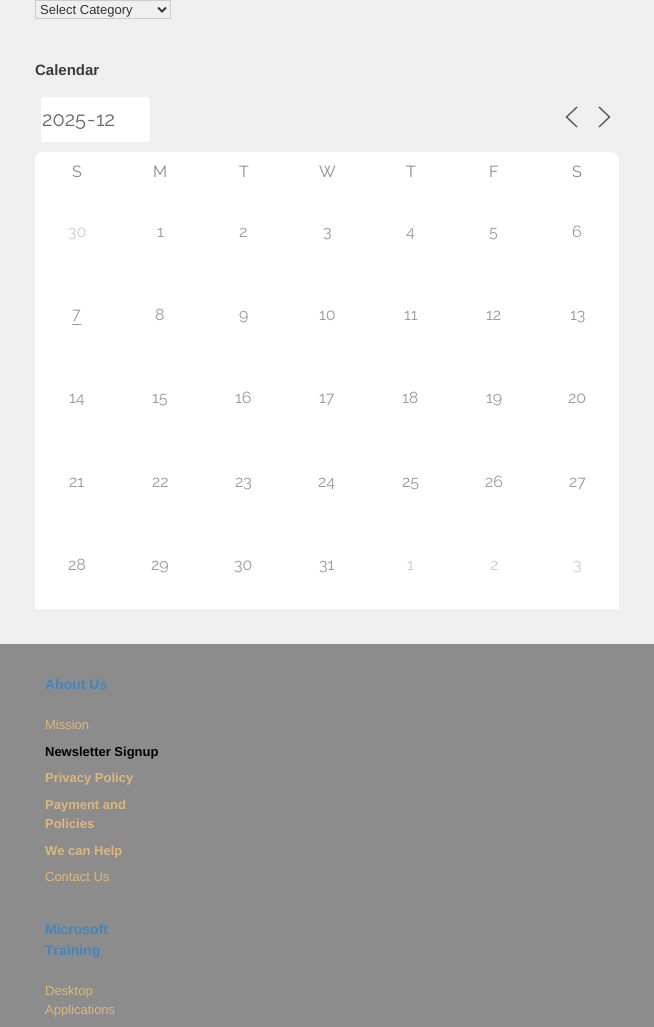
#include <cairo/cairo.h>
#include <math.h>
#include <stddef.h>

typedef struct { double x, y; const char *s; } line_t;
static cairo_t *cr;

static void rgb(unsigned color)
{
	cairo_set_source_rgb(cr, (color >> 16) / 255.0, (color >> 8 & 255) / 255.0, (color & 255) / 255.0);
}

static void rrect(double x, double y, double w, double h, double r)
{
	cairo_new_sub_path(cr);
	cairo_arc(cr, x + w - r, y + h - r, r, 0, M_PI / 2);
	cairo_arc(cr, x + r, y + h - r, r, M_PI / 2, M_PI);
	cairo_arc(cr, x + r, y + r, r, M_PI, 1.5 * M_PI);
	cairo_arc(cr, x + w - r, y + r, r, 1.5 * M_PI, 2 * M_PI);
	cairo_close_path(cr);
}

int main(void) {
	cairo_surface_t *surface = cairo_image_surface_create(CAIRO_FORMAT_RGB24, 654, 1027);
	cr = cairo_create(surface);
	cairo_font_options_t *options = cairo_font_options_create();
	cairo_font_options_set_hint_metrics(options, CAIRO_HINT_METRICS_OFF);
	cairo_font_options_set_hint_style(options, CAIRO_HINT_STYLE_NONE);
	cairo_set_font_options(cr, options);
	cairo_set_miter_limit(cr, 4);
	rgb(0x8c8c8c);
	cairo_paint(cr);
	rgb(0xefefef);
	cairo_rectangle(cr, 0, 0, 654, 644);
	cairo_fill(cr);
	cairo_rectangle(cr, 35.5, 0.5, 135, 18);
	rgb(0xcccccc);
	cairo_set_line_width(cr, 1);
	cairo_stroke(cr);
	cairo_new_path(cr);
	cairo_move_to(cr, 158, 7.5);
	cairo_line_to(cr, 162, 11.5);
	cairo_line_to(cr, 166, 7.5);
	rgb(0x333333);
	cairo_set_line_width(cr, 2);
	cairo_stroke(cr);
	rgb(0xffffff);
	rrect(41, 97, 109, 45, 3);
	cairo_fill(cr);
	cairo_new_path(cr);
	cairo_move_to(cr, 576.5, 126.5);
	cairo_line_to(cr, 566.5, 117);
	cairo_line_to(cr, 576.5, 107.5);
	cairo_move_to(cr, 599.5, 126.5);
	cairo_line_to(cr, 609.5, 117);
	cairo_line_to(cr, 599.5, 107.5);
	rgb(0x555555);
	cairo_set_line_width(cr, 1.5);
	cairo_set_line_cap(cr, CAIRO_LINE_CAP_SQUARE);
	cairo_stroke(cr);
	rgb(0xffffff);
	cairo_new_path(cr);
	cairo_move_to(cr, 43, 152);
	cairo_line_to(cr, 611, 152);
	cairo_curve_to(cr, 615.5, 152, 619, 155.5, 619, 160);
	cairo_line_to(cr, 619, 192);
	cairo_line_to(cr, 35, 192);
	cairo_line_to(cr, 35, 160);
	cairo_curve_to(cr, 35, 155.5, 38.5, 152, 43, 152);
	cairo_close_path(cr);
	cairo_fill(cr);
	cairo_rectangle(cr, 35, 192, 584, 417);
	cairo_fill(cr);
	rgb(0x999999);
	cairo_rectangle(cr, 72, 324, 9, 1);
	cairo_fill(cr);
	cairo_select_font_face(cr, "Liberation Sans", CAIRO_FONT_SLANT_NORMAL, CAIRO_FONT_WEIGHT_NORMAL);
	cairo_set_font_size(cr, 13);
	rgb(0x333333);
	cairo_move_to(cr, 40, 14);
	cairo_show_text(cr, "Select Category");
	cairo_select_font_face(cr, "Liberation Sans", CAIRO_FONT_SLANT_NORMAL, CAIRO_FONT_WEIGHT_BOLD);
	cairo_set_font_size(cr, 15);
	rgb(0x3b3b3b);
	cairo_move_to(cr, 35, 75);
	cairo_show_text(cr, "Calendar");
	cairo_select_font_face(cr, "Raleway", CAIRO_FONT_SLANT_NORMAL, CAIRO_FONT_WEIGHT_NORMAL);
	cairo_set_font_size(cr, 20);
	rgb(0x666666);
	{
		static const line_t items[] = {
			{42, 126, "2025"},
			{87, 126, "-"},
			{96, 126, "12"},
		};
		for (size_t i = 0; i < sizeof items / sizeof *items; i++) {
			cairo_move_to(cr, items[i].x, items[i].y);
			cairo_show_text(cr, items[i].s);
		}
	}
	cairo_set_font_size(cr, 16);
	rgb(0x888888);
	{
		static const line_t items[] = {
			{72, 177, "S"},
			{153, 177, "M"},
			{239, 177, "T"},
			{319, 177, "W"},
			{406, 177, "T"},
			{489, 177, "F"},
			{572, 177, "S"},
		};
		for (size_t i = 0; i < sizeof items / sizeof *items; i++) {
			cairo_move_to(cr, items[i].x, items[i].y);
			cairo_show_text(cr, items[i].s);
		}
	}
	rgb(0xcccccc);
	cairo_move_to(cr, 68, 237);
	cairo_show_text(cr, "30");
	rgb(0x999999);
	{
		static const line_t items[] = {
			{157, 237, "1"},
			{239, 237, "2"},
			{323, 237, "3"},
			{406, 237, "4"},
			{489, 237, "5"},
			{572, 237, "6"},
			{72, 319, "7"},
			{155, 320, "8"},
			{239, 320, "9"},
			{319, 320, "10"},
			{404, 320, "11"},
			{486, 320, "12"},
			{570, 320, "13"},
			{69, 403, "14"},
			{152, 403, "15"},
			{235, 403, "16"},
			{319, 403, "17"},
			{402, 403, "18"},
			{486, 403, "19"},
			{568, 403, "20"},
			{69, 487, "21"},
			{152, 487, "22"},
			{235, 487, "23"},
			{318, 487, "24"},
			{402, 487, "25"},
			{485, 487, "26"},
			{569, 487, "27"},
			{68, 570, "28"},
			{151, 570, "29"},
			{234, 570, "30"},
			{319, 570, "31"},
		};
		for (size_t i = 0; i < sizeof items / sizeof *items; i++) {
			cairo_move_to(cr, items[i].x, items[i].y);
			cairo_show_text(cr, items[i].s);
		}
	}
	rgb(0xcccccc);
	{
		static const line_t items[] = {
			{407, 570, "1"},
			{490, 570, "2"},
			{573, 570, "3"},
		};
		for (size_t i = 0; i < sizeof items / sizeof *items; i++) {
			cairo_move_to(cr, items[i].x, items[i].y);
			cairo_show_text(cr, items[i].s);
		}
	}
	cairo_select_font_face(cr, "Liberation Sans", CAIRO_FONT_SLANT_NORMAL, CAIRO_FONT_WEIGHT_BOLD);
	cairo_set_font_size(cr, 14);
	rgb(0x4285bf);
	cairo_move_to(cr, 45, 689);
	cairo_show_text(cr, "About Us");
	cairo_select_font_face(cr, "Liberation Sans", CAIRO_FONT_SLANT_NORMAL, CAIRO_FONT_WEIGHT_NORMAL);
	cairo_set_font_size(cr, 13);
	rgb(0xddb67c);
	cairo_move_to(cr, 45, 729);
	cairo_show_text(cr, "Mission");
	cairo_select_font_face(cr, "Liberation Sans", CAIRO_FONT_SLANT_NORMAL, CAIRO_FONT_WEIGHT_BOLD);
	rgb(0x000000);
	cairo_move_to(cr, 45, 756);
	cairo_show_text(cr, "Newsletter Signup");
	rgb(0xddb67c);
	{
		static const line_t items[] = {
			{45, 782, "Privacy Policy"},
			{45, 809, "Payment and"},
			{45, 828, "Policies"},
			{45, 855, "We can Help"},
		};
		for (size_t i = 0; i < sizeof items / sizeof *items; i++) {
			cairo_move_to(cr, items[i].x, items[i].y);
			cairo_show_text(cr, items[i].s);
		}
	}
	cairo_select_font_face(cr, "Liberation Sans", CAIRO_FONT_SLANT_NORMAL, CAIRO_FONT_WEIGHT_NORMAL);
	cairo_move_to(cr, 45, 881);
	cairo_show_text(cr, "Contact Us");
	cairo_select_font_face(cr, "Liberation Sans", CAIRO_FONT_SLANT_NORMAL, CAIRO_FONT_WEIGHT_BOLD);
	cairo_set_font_size(cr, 14);
	rgb(0x4285bf);
	cairo_move_to(cr, 45, 934);
	cairo_show_text(cr, "Microsoft");
	cairo_move_to(cr, 45, 955);
	cairo_show_text(cr, "Training");
	cairo_select_font_face(cr, "Liberation Sans", CAIRO_FONT_SLANT_NORMAL, CAIRO_FONT_WEIGHT_NORMAL);
	cairo_set_font_size(cr, 13);
	rgb(0xddb67c);
	cairo_move_to(cr, 45, 995);
	cairo_show_text(cr, "Desktop");
	cairo_move_to(cr, 45, 1014);
	cairo_show_text(cr, "Applications");
	cairo_surface_write_to_png(surface, "page.png");
	cairo_font_options_destroy(options);
	cairo_destroy(cr);
	cairo_surface_destroy(surface);
	return 0;
}
